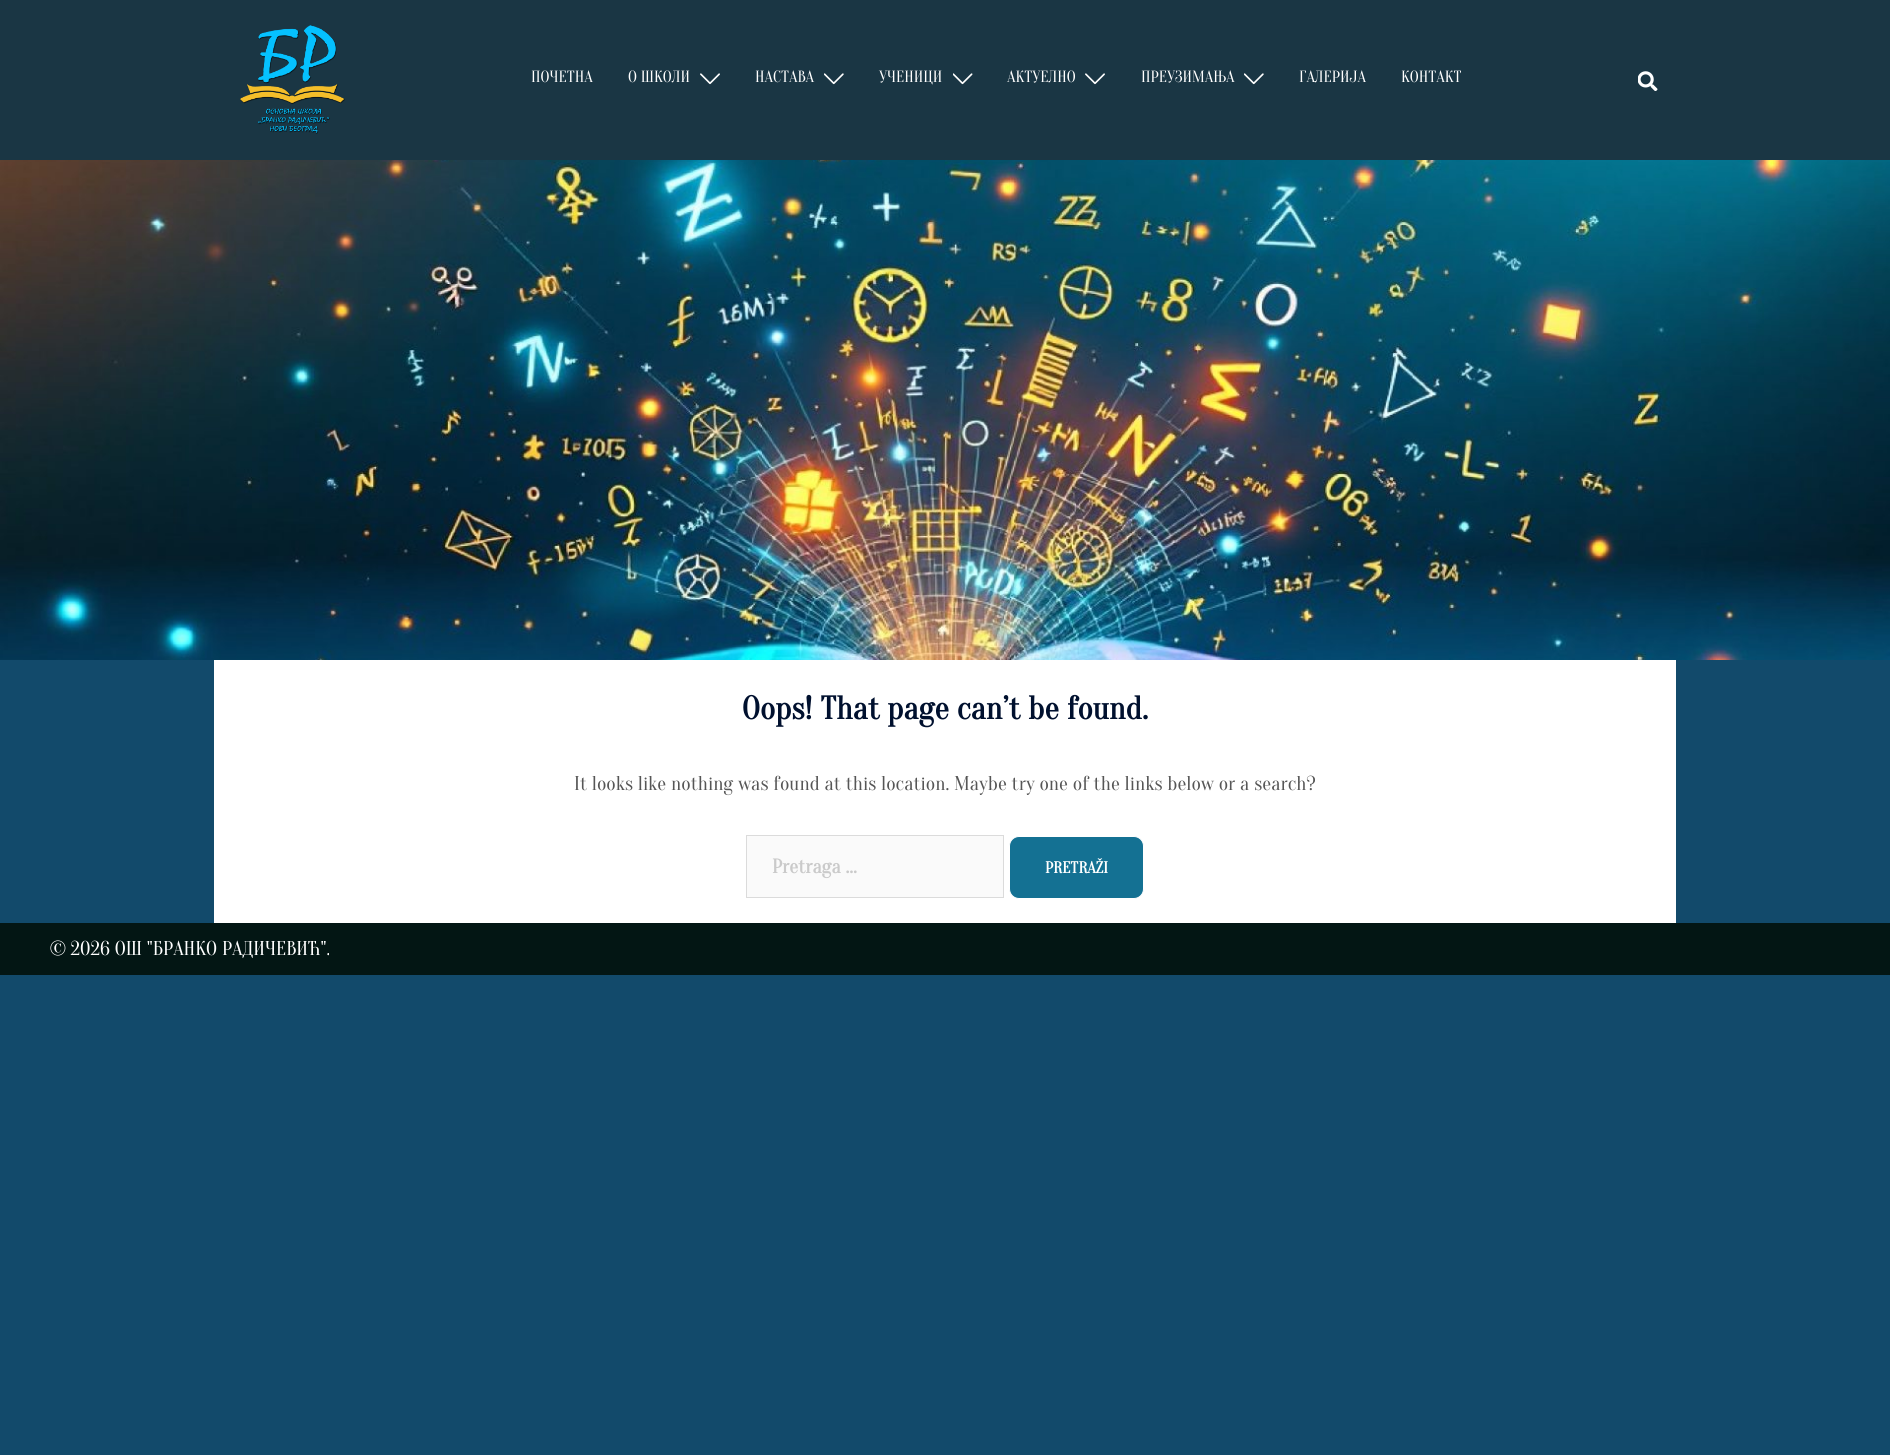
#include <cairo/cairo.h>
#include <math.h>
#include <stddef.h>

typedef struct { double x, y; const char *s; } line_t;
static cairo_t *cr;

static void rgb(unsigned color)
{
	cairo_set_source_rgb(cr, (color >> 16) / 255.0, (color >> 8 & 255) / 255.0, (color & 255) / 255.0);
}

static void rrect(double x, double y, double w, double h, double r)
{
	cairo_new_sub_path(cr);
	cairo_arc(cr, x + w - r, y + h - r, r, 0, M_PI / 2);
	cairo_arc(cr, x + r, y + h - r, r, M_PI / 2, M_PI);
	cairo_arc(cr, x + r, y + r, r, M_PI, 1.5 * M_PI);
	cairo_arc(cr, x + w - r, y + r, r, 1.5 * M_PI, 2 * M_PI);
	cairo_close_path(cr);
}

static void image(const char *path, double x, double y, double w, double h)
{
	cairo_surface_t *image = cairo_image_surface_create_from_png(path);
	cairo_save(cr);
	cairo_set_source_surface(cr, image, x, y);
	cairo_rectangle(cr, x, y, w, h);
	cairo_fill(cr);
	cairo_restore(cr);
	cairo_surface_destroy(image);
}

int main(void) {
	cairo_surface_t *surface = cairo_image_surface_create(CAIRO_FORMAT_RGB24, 1890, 1455);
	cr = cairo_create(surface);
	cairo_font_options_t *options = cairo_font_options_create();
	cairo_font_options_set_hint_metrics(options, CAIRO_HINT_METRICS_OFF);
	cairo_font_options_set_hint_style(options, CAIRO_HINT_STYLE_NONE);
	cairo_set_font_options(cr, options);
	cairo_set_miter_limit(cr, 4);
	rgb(0x124a6b);
	cairo_paint(cr);
	rgb(0x1a3644);
	cairo_rectangle(cr, 0, 0, 1890, 160);
	cairo_fill(cr);
	image("img/1.png", 240, 25, 105, 109);
	image("img/2.png", 700, 73, 20, 12);
	image("img/3.png", 824, 73, 20, 12);
	image("img/4.png", 953, 73, 20, 12);
	image("img/2.png", 1085, 73, 20, 12);
	image("img/3.png", 1244, 73, 20, 12);
	image("img/5.png", 1638, 71, 20, 20);
	image("img/6.png", 0, 160, 1890, 500);
	rgb(0xffffff);
	cairo_rectangle(cr, 214, 660, 1462, 263);
	cairo_fill(cr);
	rgb(0xfafafa);
	cairo_rectangle(cr, 746.5, 835.5, 257, 62);
	cairo_fill_preserve(cr);
	rgb(0xdbdbdb);
	cairo_set_line_width(cr, 1);
	cairo_stroke(cr);
	rgb(0x147193);
	rrect(1009.5, 836.5, 134, 62, 9.5);
	cairo_fill_preserve(cr);
	rgb(0xffffff);
	cairo_stroke(cr);
	rgb(0x031614);
	cairo_rectangle(cr, 0, 923, 1890, 52);
	cairo_fill(cr);
	cairo_select_font_face(cr, "Oranienbaum", CAIRO_FONT_SLANT_NORMAL, CAIRO_FONT_WEIGHT_NORMAL);
	cairo_set_font_size(cr, 16.25);
	rgb(0xffffff);
	{
		static const line_t items[] = {
			{531, 82, "ПОЧЕТНА"},
			{628, 82, "О ШКОЛИ"},
			{755, 82, "НАСТАВА"},
			{879, 82, "УЧЕНИЦИ"},
			{1007, 82, "АКТУЕЛНО"},
			{1141, 82, "ПРЕУЗИМАЊА"},
			{1299, 82, "ГАЛЕРИЈА"},
			{1401, 82, "КОНТАКТ"},
		};
		for (size_t i = 0; i < sizeof items / sizeof *items; i++) {
			cairo_move_to(cr, items[i].x, items[i].y);
			cairo_show_text(cr, items[i].s);
		}
	}
	cairo_select_font_face(cr, "Oranienbaum", CAIRO_FONT_SLANT_NORMAL, CAIRO_FONT_WEIGHT_BOLD);
	cairo_set_font_size(cr, 32.5);
	rgb(0x00102e);
	cairo_move_to(cr, 742, 719);
	cairo_show_text(cr, "Oops! That page can’t be found.");
	cairo_select_font_face(cr, "Oranienbaum", CAIRO_FONT_SLANT_NORMAL, CAIRO_FONT_WEIGHT_NORMAL);
	cairo_set_font_size(cr, 20);
	rgb(0x565656);
	cairo_move_to(cr, 574, 790);
	cairo_show_text(cr, "It looks like nothing was found at this location. Maybe try one of the links below or a search?");
	cairo_select_font_face(cr, "Oranienbaum", CAIRO_FONT_SLANT_NORMAL, CAIRO_FONT_WEIGHT_BOLD);
	rgb(0xcacaca);
	cairo_move_to(cr, 772, 873);
	cairo_show_text(cr, "Pretraga …");
	cairo_set_font_size(cr, 16.25);
	rgb(0xffffff);
	cairo_move_to(cr, 1045, 873);
	cairo_show_text(cr, "PRETRAŽI");
	cairo_select_font_face(cr, "Oranienbaum", CAIRO_FONT_SLANT_NORMAL, CAIRO_FONT_WEIGHT_NORMAL);
	cairo_set_font_size(cr, 20);
	cairo_move_to(cr, 50, 955);
	cairo_show_text(cr, "© 2026 OШ \"БРАНКО РАДИЧЕВИЋ\".");
	cairo_surface_write_to_png(surface, "page.png");
	cairo_font_options_destroy(options);
	cairo_destroy(cr);
	cairo_surface_destroy(surface);
	return 0;
}
